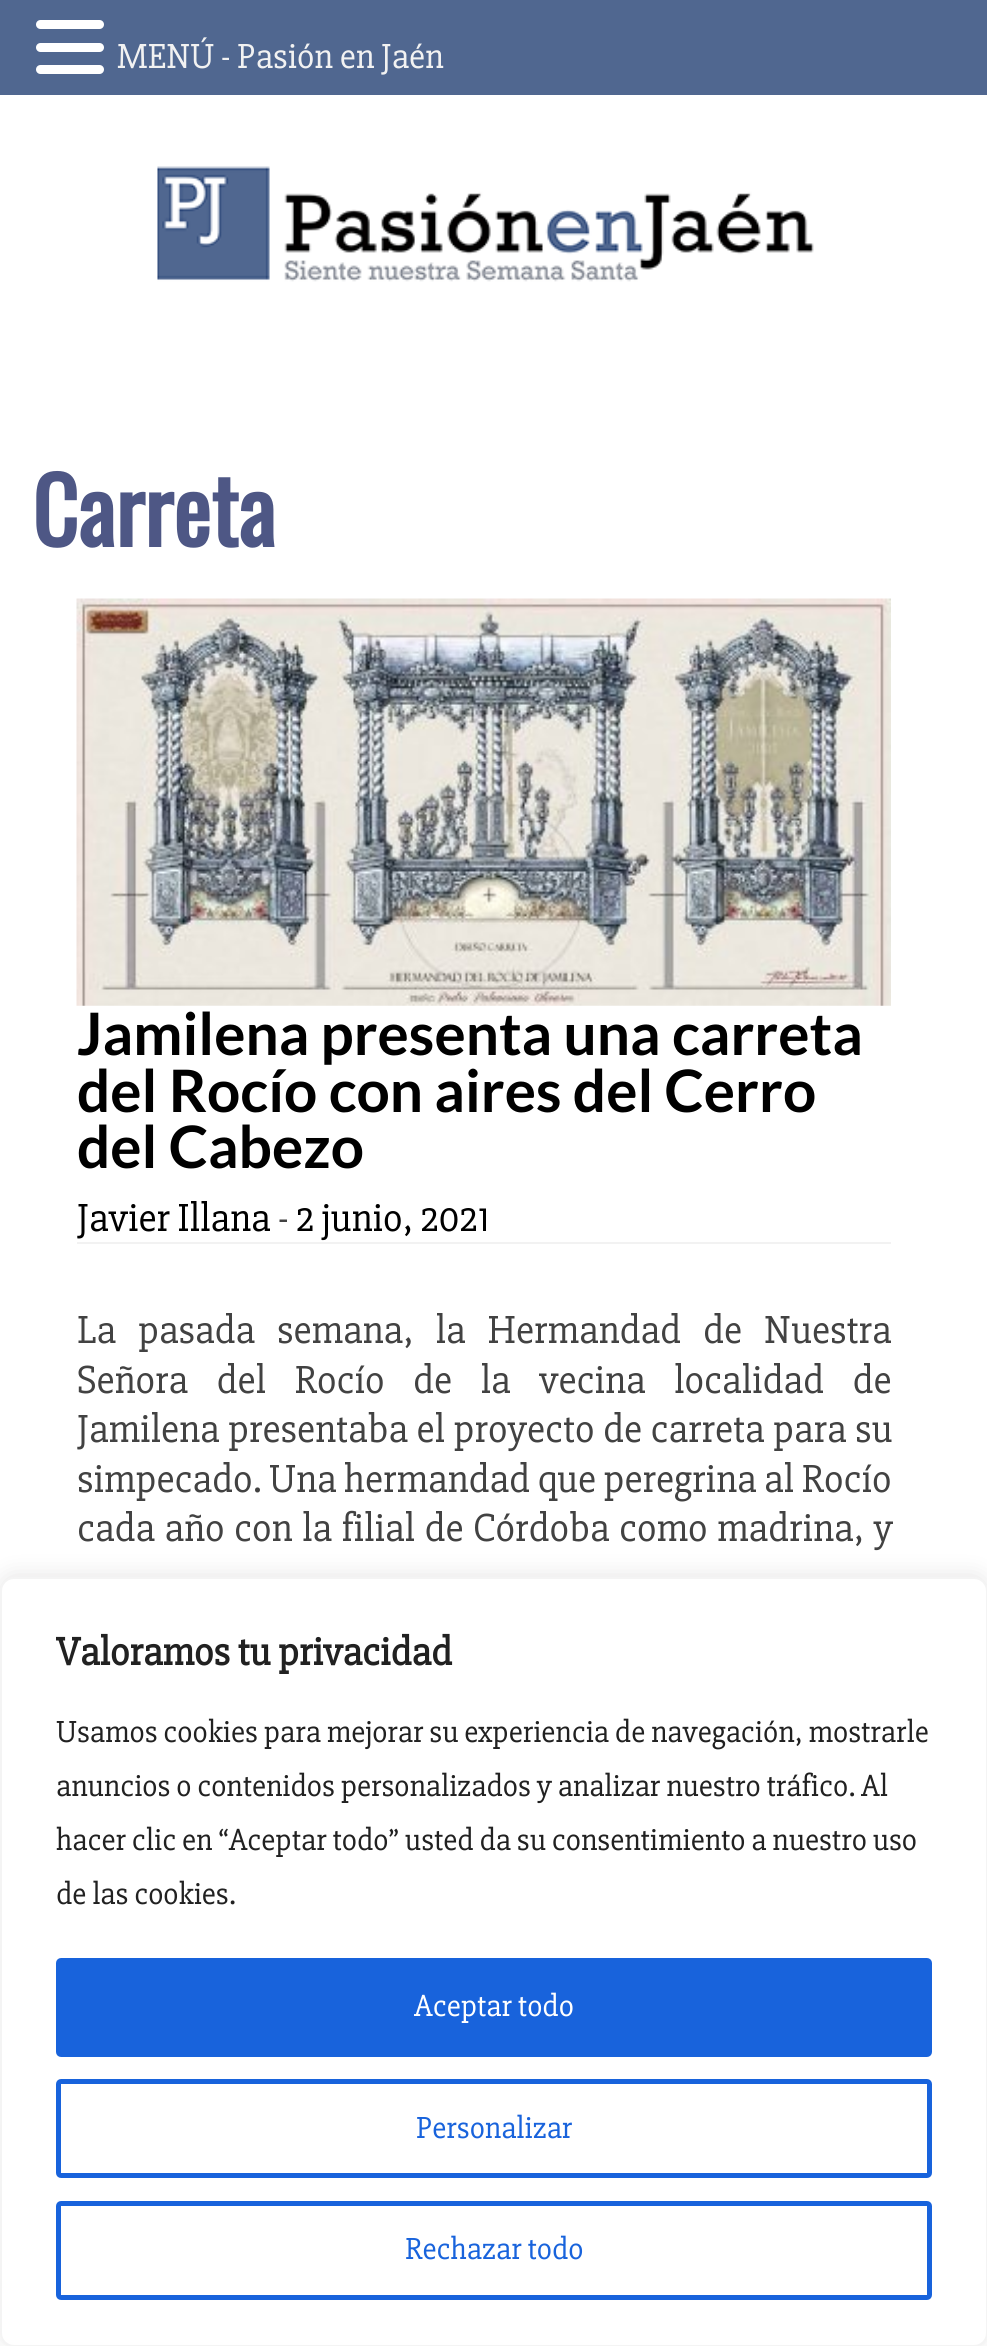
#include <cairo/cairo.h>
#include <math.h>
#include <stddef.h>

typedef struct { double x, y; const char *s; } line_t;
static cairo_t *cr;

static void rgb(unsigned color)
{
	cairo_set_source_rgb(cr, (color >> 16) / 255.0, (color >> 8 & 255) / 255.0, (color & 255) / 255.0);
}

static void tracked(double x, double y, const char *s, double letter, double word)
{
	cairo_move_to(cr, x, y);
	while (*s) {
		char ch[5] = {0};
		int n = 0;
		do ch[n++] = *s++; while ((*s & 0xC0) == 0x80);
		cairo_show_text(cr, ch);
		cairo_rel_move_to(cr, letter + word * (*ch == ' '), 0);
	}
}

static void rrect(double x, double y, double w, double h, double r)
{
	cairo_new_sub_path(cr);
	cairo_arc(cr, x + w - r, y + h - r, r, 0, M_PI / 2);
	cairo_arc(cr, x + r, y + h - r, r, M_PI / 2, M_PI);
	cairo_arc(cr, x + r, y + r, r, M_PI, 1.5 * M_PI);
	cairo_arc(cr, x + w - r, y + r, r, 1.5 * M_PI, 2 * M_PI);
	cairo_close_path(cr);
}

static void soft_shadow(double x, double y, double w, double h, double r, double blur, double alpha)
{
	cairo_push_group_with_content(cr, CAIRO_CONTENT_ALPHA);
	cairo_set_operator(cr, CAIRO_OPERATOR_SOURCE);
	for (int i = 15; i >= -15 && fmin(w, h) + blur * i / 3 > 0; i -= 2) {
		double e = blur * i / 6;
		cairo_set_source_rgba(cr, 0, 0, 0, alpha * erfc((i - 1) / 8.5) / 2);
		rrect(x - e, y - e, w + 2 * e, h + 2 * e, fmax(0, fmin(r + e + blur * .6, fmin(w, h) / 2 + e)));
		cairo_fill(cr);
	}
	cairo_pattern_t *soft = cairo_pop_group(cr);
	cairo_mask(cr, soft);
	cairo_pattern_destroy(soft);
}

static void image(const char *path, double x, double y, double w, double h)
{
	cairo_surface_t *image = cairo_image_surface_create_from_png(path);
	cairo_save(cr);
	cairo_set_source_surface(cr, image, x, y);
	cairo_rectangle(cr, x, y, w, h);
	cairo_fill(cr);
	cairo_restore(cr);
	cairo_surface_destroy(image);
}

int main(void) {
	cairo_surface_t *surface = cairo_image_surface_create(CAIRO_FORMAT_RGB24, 987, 2346);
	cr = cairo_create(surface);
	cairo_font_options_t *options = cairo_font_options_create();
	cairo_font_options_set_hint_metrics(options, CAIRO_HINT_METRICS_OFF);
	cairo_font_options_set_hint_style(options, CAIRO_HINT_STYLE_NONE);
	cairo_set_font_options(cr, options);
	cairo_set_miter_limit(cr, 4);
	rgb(0xffffff);
	cairo_paint(cr);
	rgb(0x506790);
	cairo_rectangle(cr, 0, 0, 987, 95);
	cairo_fill(cr);
	rgb(0xffffff);
	rrect(36, 20, 68, 9, 4.5);
	cairo_fill(cr);
	rrect(36, 43, 68, 9, 4.5);
	cairo_fill(cr);
	rrect(36, 65, 68, 9, 4.5);
	cairo_fill(cr);
	image("img/1.png", 157, 166, 657, 116);
	rgb(0xf2f2f2);
	cairo_rectangle(cr, 77, 1242, 814, 2);
	cairo_fill(cr);
	image("img/2.png", 76, 598, 815, 408);
	rgb(0xacabab);
	soft_shadow(0, 1575, 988, 770, 14, 11, 0.3);
	rgb(0xffffff);
	rrect(1, 1578, 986, 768, 13);
	cairo_fill_preserve(cr);
	rgb(0xf4f4f4);
	cairo_stroke(cr);
	rgb(0x1863dc);
	rrect(58.5, 1960.5, 871, 94, 2.5);
	cairo_fill_preserve(cr);
	cairo_set_line_width(cr, 5);
	cairo_stroke(cr);
	rrect(58.5, 2081.5, 871, 94, 2.5);
	cairo_stroke(cr);
	rrect(58.5, 2203.5, 871, 94, 2.5);
	cairo_stroke(cr);
	cairo_select_font_face(cr, "Slabo 27px", CAIRO_FONT_SLANT_NORMAL, CAIRO_FONT_WEIGHT_NORMAL);
	cairo_set_font_size(cr, 36);
	rgb(0xf2f2f2);
	cairo_move_to(cr, 117, 68);
	cairo_show_text(cr, "MENÚ - Pasión en Jaén");
	cairo_select_font_face(cr, "Oswald", CAIRO_FONT_SLANT_NORMAL, CAIRO_FONT_WEIGHT_BOLD);
	cairo_set_font_size(cr, 90);
	rgb(0x4e5785);
	cairo_move_to(cr, 32, 547);
	cairo_show_text(cr, "Carreta");
	cairo_select_font_face(cr, "Lato", CAIRO_FONT_SLANT_NORMAL, CAIRO_FONT_WEIGHT_BOLD);
	cairo_set_font_size(cr, 58.5);
	rgb(0x000000);
	{
		static const line_t items[] = {
			{77, 1055, "Jamilena presenta una carreta"},
			{77, 1112, "del Rocío con aires del Cerro"},
			{77, 1168, "del Cabezo"},
		};
		for (size_t i = 0; i < sizeof items / sizeof *items; i++) {
			cairo_move_to(cr, items[i].x, items[i].y);
			cairo_show_text(cr, items[i].s);
		}
	}
	cairo_select_font_face(cr, "Slabo 27px", CAIRO_FONT_SLANT_NORMAL, CAIRO_FONT_WEIGHT_NORMAL);
	cairo_set_font_size(cr, 40.5);
	cairo_move_to(cr, 77, 1231);
	cairo_show_text(cr, "Javier Illana");
	rgb(0x424242);
	cairo_move_to(cr, 278, 1231);
	cairo_show_text(cr, "-");
	rgb(0x000000);
	cairo_move_to(cr, 296, 1231);
	cairo_show_text(cr, "2 junio, 2021");
	rgb(0x424242);
	tracked(77, 1343, "La pasada semana, la Hermandad de Nuestra", 0, 14.5);
	tracked(77, 1393, "Señora del Rocío de la vecina localidad de", 0, 21);
	tracked(77, 1442, "Jamilena presentaba el proyecto de carreta para su", 0, 1);
	cairo_move_to(cr, 77, 1492);
	cairo_show_text(cr, "simpecado. Una hermandad que peregrina al Rocío");
	tracked(77, 1541, "cada año con la filial de Córdoba como madrina, y", 0, 2);
	cairo_select_font_face(cr, "Slabo 27px", CAIRO_FONT_SLANT_NORMAL, CAIRO_FONT_WEIGHT_BOLD);
	rgb(0x212121);
	cairo_move_to(cr, 56, 1665);
	cairo_show_text(cr, "Valoramos tu privacidad");
	cairo_select_font_face(cr, "Slabo 27px", CAIRO_FONT_SLANT_NORMAL, CAIRO_FONT_WEIGHT_NORMAL);
	cairo_set_font_size(cr, 31.5);
	{
		static const line_t items[] = {
			{56, 1742, "Usamos cookies para mejorar su experiencia de navegación, mostrarle"},
			{56, 1796, "anuncios o contenidos personalizados y analizar nuestro tráfico. Al"},
			{56, 1850, "hacer clic en “Aceptar todo” usted da su consentimiento a nuestro uso"},
			{56, 1904, "de las cookies."},
		};
		for (size_t i = 0; i < sizeof items / sizeof *items; i++) {
			cairo_move_to(cr, items[i].x, items[i].y);
			cairo_show_text(cr, items[i].s);
		}
	}
	rgb(0xffffff);
	cairo_move_to(cr, 414, 2016);
	cairo_show_text(cr, "Aceptar todo");
	rgb(0x1863dc);
	cairo_move_to(cr, 416, 2138);
	cairo_show_text(cr, "Personalizar");
	cairo_move_to(cr, 405, 2259);
	cairo_show_text(cr, "Rechazar todo");
	cairo_surface_write_to_png(surface, "page.png");
	cairo_font_options_destroy(options);
	cairo_destroy(cr);
	cairo_surface_destroy(surface);
	return 0;
}
